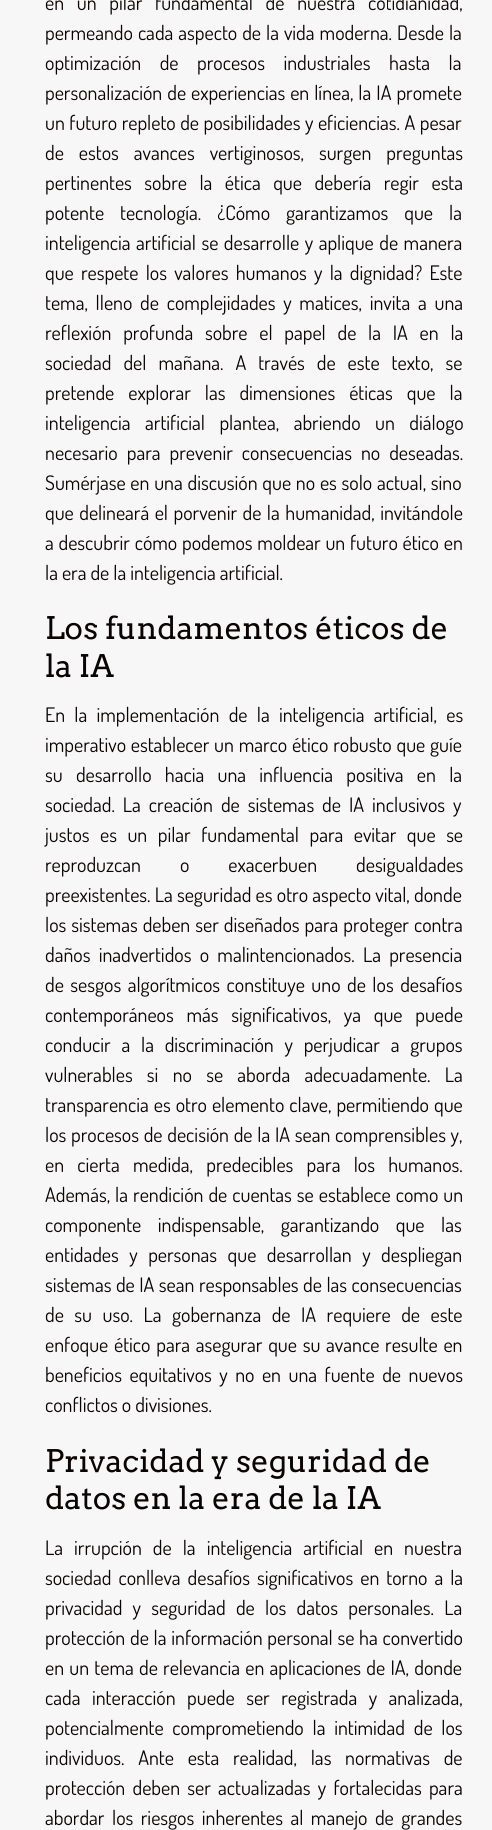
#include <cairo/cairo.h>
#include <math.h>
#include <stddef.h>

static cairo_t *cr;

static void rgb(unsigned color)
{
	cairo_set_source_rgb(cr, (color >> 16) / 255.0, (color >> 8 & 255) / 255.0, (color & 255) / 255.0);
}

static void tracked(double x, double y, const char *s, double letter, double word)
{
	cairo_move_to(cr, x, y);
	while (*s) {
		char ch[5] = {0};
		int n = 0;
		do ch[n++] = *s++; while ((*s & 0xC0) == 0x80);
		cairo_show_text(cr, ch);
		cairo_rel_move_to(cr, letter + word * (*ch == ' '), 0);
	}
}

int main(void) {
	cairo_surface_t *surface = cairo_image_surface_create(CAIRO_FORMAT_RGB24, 492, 1830);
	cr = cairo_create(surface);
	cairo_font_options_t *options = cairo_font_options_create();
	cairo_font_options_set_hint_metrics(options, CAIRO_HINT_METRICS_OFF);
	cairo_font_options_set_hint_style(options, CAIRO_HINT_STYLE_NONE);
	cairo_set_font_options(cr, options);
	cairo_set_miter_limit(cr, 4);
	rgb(0xf8f7f7);
	cairo_paint(cr);
	cairo_select_font_face(cr, "Dosis", CAIRO_FONT_SLANT_NORMAL, CAIRO_FONT_WEIGHT_NORMAL);
	cairo_set_font_size(cr, 20);
	rgb(0x0a0303);
	tracked(45, 10, "en un pilar fundamental de nuestra cotidianidad,", 0, 8.75);
	tracked(45, 40, "permeando cada aspecto de la vida moderna. Desde la", 0, 1);
	tracked(45, 70, "optimización de procesos industriales hasta la", 0, 14.5);
	tracked(45, 100, "personalización de experiencias en línea, la IA promete", 0, 1);
	tracked(45, 130, "un futuro repleto de posibilidades y eficiencias. A pesar", 0, 0.5);
	tracked(45, 160, "de estos avances vertiginosos, surgen preguntas", 0, 11);
	tracked(45, 190, "pertinentes sobre la ética que debería regir esta", 0, 8.5);
	tracked(45, 220, "potente tecnología. ¿Cómo garantizamos que la", 0, 12);
	tracked(45, 250, "inteligencia artificial se desarrolle y aplique de manera", 0, 1.5);
	tracked(45, 280, "que respete los valores humanos y la dignidad? Este", 0, 3.25);
	tracked(45, 310, "tema, lleno de complejidades y matices, invita a una", 0, 3.75);
	tracked(45, 340, "reflexión profunda sobre el papel de la IA en la", 0, 7.75);
	tracked(45, 370, "sociedad del mañana. A través de este texto, se", 0, 8);
	tracked(45, 400, "pretende explorar las dimensiones éticas que la", 0, 10);
	tracked(45, 430, "inteligencia artificial plantea, abriendo un diálogo", 0, 10.5);
	tracked(45, 460, "necesario para prevenir consecuencias no deseadas.", 0, 5);
	tracked(45, 490, "Sumérjase en una discusión que no es solo actual, sino", 0, 0.75);
	tracked(45, 520, "que delineará el porvenir de la humanidad, invitándole", 0, 1.5);
	tracked(45, 550, "a descubrir cómo podemos moldear un futuro ético en", 0, 0.75);
	cairo_move_to(cr, 45, 580);
	cairo_show_text(cr, "la era de la inteligencia artificial.");
	cairo_select_font_face(cr, "Arvo", CAIRO_FONT_SLANT_NORMAL, CAIRO_FONT_WEIGHT_NORMAL);
	cairo_set_font_size(cr, 31);
	cairo_move_to(cr, 45, 639);
	cairo_show_text(cr, "Los fundamentos éticos de");
	cairo_move_to(cr, 45, 677);
	cairo_show_text(cr, "la IA");
	cairo_select_font_face(cr, "Dosis", CAIRO_FONT_SLANT_NORMAL, CAIRO_FONT_WEIGHT_NORMAL);
	cairo_set_font_size(cr, 20);
	tracked(45, 722, "En la implementación de la inteligencia artificial, es", 0, 5.25);
	tracked(45, 752, "imperativo establecer un marco ético robusto que guíe", 0, 0.75);
	tracked(45, 782, "su desarrollo hacia una influencia positiva en la", 0, 9.25);
	tracked(45, 812, "sociedad. La creación de sistemas de IA inclusivos y", 0, 4);
	tracked(45, 842, "justos es un pilar fundamental para evitar que se", 0, 6.5);
	tracked(45, 872, "reproduzcan o exacerbuen desigualdades", 0, 35);
	tracked(45, 902, "preexistentes. La seguridad es otro aspecto vital, donde", 0, 0.25);
	tracked(45, 932, "los sistemas deben ser diseñados para proteger contra", 0, 1);
	tracked(45, 962, "daños inadvertidos o malintencionados. La presencia", 0, 4.25);
	tracked(45, 992, "de sesgos algorítmicos constituye uno de los desafíos", 0, 2.5);
	tracked(45, 1022, "contemporáneos más significativos, ya que puede", 0, 8.75);
	tracked(45, 1052, "conducir a la discriminación y perjudicar a grupos", 0, 6.75);
	tracked(45, 1082, "vulnerables si no se aborda adecuadamente. La", 0, 10.25);
	tracked(45, 1112, "transparencia es otro elemento clave, permitiendo que", 0, 1);
	tracked(45, 1142, "los procesos de decisión de la IA sean comprensibles y,", 0, 0.75);
	tracked(45, 1172, "en cierta medida, predecibles para los humanos.", 0, 9.25);
	tracked(45, 1202, "Además, la rendición de cuentas se establece como un", 0, 1);
	tracked(45, 1232, "componente indispensable, garantizando que las", 0, 12.5);
	tracked(45, 1262, "entidades y personas que desarrollan y despliegan", 0, 6.5);
	tracked(45, 1292, "sistemas de IA sean responsables de las consecuencias", 0, 0.5);
	tracked(45, 1322, "de su uso. La gobernanza de IA requiere de este", 0, 6.5);
	tracked(45, 1352, "enfoque ético para asegurar que su avance resulte en", 0, 1.75);
	tracked(45, 1382, "beneficios equitativos y no en una fuente de nuevos", 0, 3.5);
	cairo_move_to(cr, 45, 1412);
	cairo_show_text(cr, "conflictos o divisiones.");
	cairo_select_font_face(cr, "Arvo", CAIRO_FONT_SLANT_NORMAL, CAIRO_FONT_WEIGHT_NORMAL);
	cairo_set_font_size(cr, 31);
	cairo_move_to(cr, 45, 1472);
	cairo_show_text(cr, "Privacidad y seguridad de");
	cairo_move_to(cr, 45, 1509);
	cairo_show_text(cr, "datos en la era de la IA");
	cairo_select_font_face(cr, "Dosis", CAIRO_FONT_SLANT_NORMAL, CAIRO_FONT_WEIGHT_NORMAL);
	cairo_set_font_size(cr, 20);
	tracked(45, 1555, "La irrupción de la inteligencia artificial en nuestra", 0, 7);
	tracked(45, 1585, "sociedad conlleva desafíos significativos en torno a la", 0, 3);
	tracked(45, 1615, "privacidad y seguridad de los datos personales. La", 0, 6.25);
	tracked(45, 1645, "protección de la información personal se ha convertido", 0, 0.75);
	tracked(45, 1675, "en un tema de relevancia en aplicaciones de IA, donde", 0, 1.25);
	tracked(45, 1705, "cada interacción puede ser registrada y analizada,", 0, 7.5);
	tracked(45, 1735, "potencialmente comprometiendo la intimidad de los", 0, 4.75);
	tracked(45, 1765, "individuos. Ante esta realidad, las normativas de", 0, 9.75);
	tracked(45, 1795, "protección deben ser actualizadas y fortalecidas para", 0, 3.25);
	tracked(45, 1825, "abordar los riesgos inherentes al manejo de grandes", 0, 3.5);
	cairo_surface_write_to_png(surface, "page.png");
	cairo_font_options_destroy(options);
	cairo_destroy(cr);
	cairo_surface_destroy(surface);
	return 0;
}
